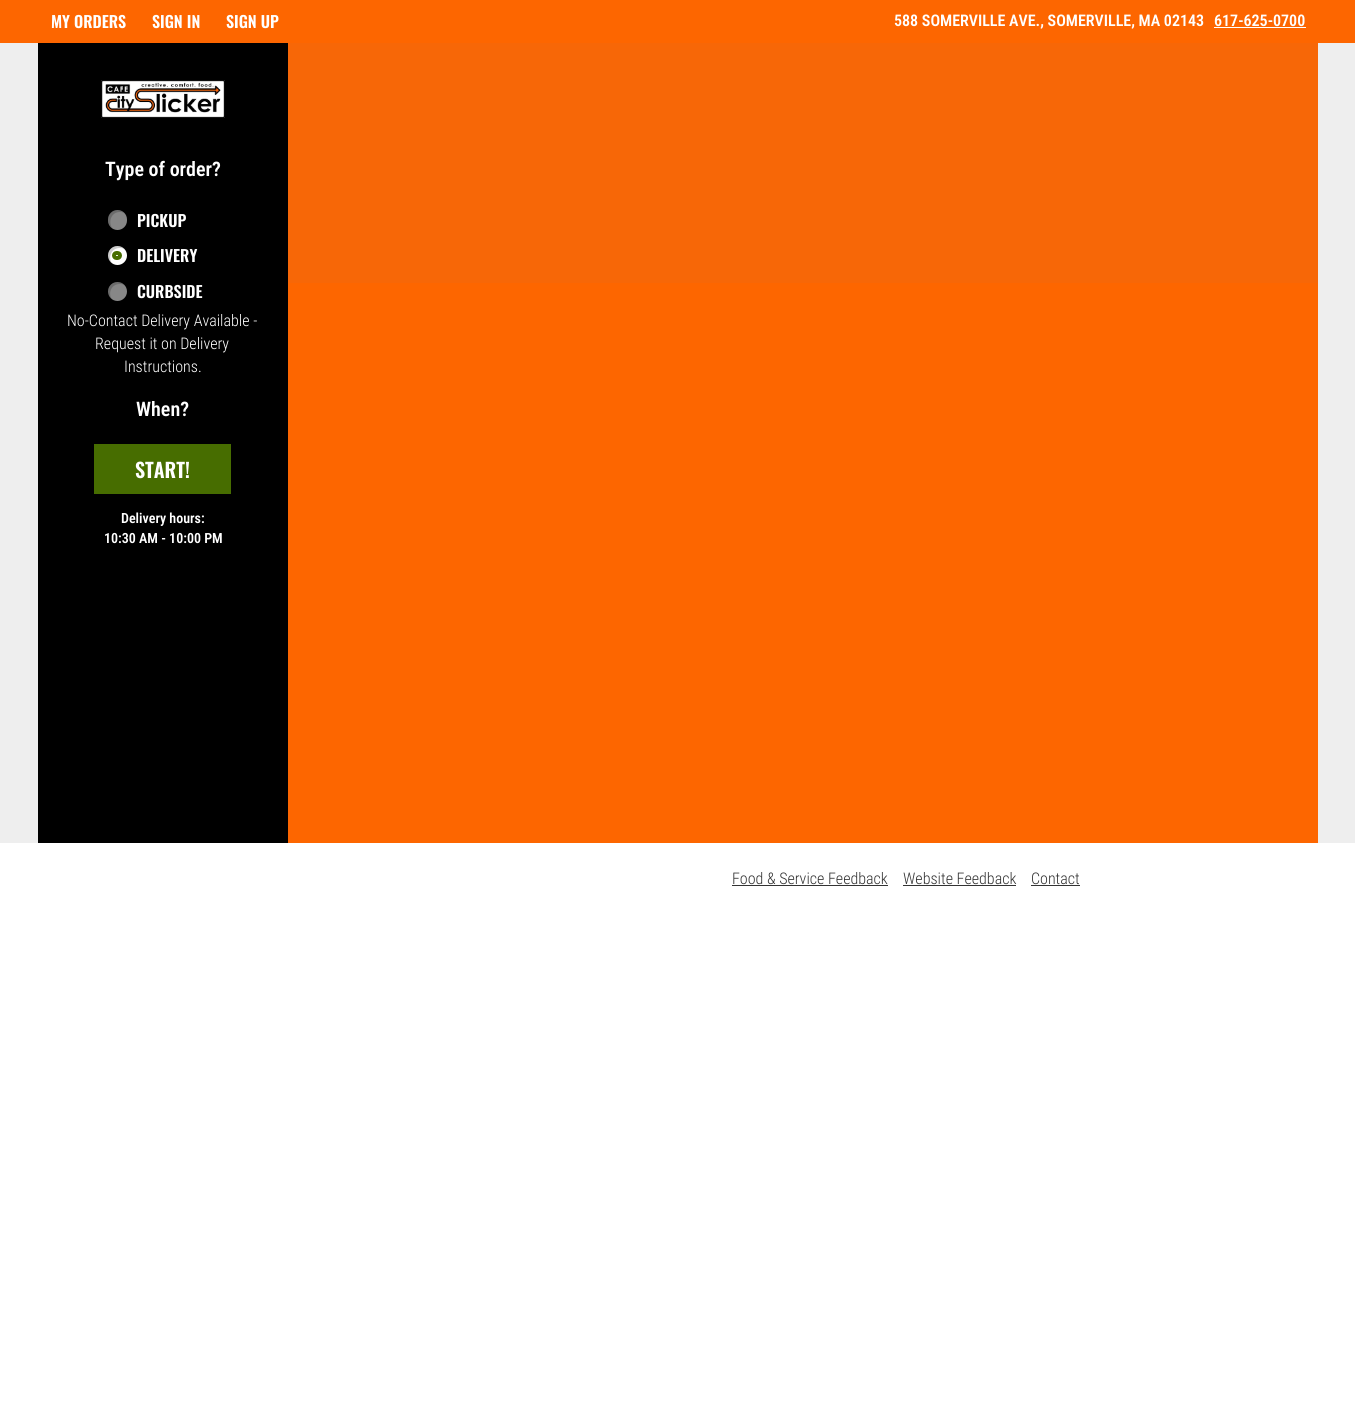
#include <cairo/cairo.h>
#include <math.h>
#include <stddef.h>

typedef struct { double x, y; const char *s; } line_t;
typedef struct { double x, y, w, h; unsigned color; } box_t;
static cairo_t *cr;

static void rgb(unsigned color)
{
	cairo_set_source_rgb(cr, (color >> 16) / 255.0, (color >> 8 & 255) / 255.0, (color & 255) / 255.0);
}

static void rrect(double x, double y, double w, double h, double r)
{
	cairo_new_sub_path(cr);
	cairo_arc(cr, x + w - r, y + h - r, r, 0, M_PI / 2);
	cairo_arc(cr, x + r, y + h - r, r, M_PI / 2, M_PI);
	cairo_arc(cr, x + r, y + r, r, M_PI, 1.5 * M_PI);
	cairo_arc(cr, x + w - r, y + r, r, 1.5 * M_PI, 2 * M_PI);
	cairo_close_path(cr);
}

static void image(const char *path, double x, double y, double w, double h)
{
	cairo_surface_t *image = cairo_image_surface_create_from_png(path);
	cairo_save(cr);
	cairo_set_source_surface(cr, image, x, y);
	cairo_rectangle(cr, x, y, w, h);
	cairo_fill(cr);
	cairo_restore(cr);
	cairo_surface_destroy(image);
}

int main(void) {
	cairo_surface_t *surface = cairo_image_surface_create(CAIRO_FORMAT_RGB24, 1355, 1405);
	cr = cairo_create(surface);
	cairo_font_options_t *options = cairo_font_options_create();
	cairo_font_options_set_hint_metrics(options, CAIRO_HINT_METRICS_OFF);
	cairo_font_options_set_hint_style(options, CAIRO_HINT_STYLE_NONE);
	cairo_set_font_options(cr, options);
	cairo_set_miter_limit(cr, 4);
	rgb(0xffffff);
	cairo_paint(cr);
	{
		static const box_t items[] = {
			{0, 43, 1355, 800, 0xeeeeee},
			{0, 0, 1355, 43, 0xfd6600},
			{1214, 27, 92, 1, 0xffffff},
			{288, 283, 1030, 560, 0xfd6600},
			{38, 43, 250, 800, 0x000000},
		};
		for (size_t i = 0; i < sizeof items / sizeof *items; i++) {
			rgb(items[i].color);
			cairo_rectangle(cr, items[i].x, items[i].y, items[i].w, items[i].h);
			cairo_fill(cr);
		}
	}
	image("img/1.png", 101, 80, 124, 38);
	rgb(0x878787);
	rrect(108, 210, 19, 20, 9.5);
	cairo_fill(cr);
	cairo_set_source_rgba(cr, 0, 0, 0, 0.2);
	cairo_new_path(cr);
	cairo_move_to(cr, 120, 212);
	cairo_curve_to(cr, 122, 212, 123.5, 212.5, 124.5, 213.5);
	cairo_curve_to(cr, 120.5, 208.5, 113, 209, 109.5, 214);
	cairo_curve_to(cr, 106.5, 218.5, 108, 225.5, 112.5, 228.5);
	cairo_curve_to(cr, 108, 223, 110.5, 212, 120, 212);
	cairo_close_path(cr);
	cairo_fill(cr);
	rgb(0xffffff);
	cairo_arc(cr, 117.5, 255.5, 9.5, 0, 2 * M_PI);
	cairo_fill(cr);
	cairo_set_source_rgba(cr, 0, 0, 0, 0.2);
	cairo_new_path(cr);
	cairo_move_to(cr, 120, 248);
	cairo_curve_to(cr, 122, 248, 123.5, 248.5, 124.5, 249);
	cairo_curve_to(cr, 115, 239, 100.5, 255.5, 112, 263.5);
	cairo_curve_to(cr, 108, 258, 110.5, 248, 120, 248);
	cairo_close_path(cr);
	cairo_fill(cr);
	rrect(114, 253, 6, 5, 2.5);
	rgb(0x476d00);
	cairo_set_line_width(cr, 4);
	cairo_stroke(cr);
	rgb(0x878787);
	cairo_arc(cr, 117.5, 291.5, 9.5, 0, 2 * M_PI);
	cairo_fill(cr);
	cairo_set_source_rgba(cr, 0, 0, 0, 0.2);
	cairo_new_path(cr);
	cairo_move_to(cr, 120, 284);
	cairo_curve_to(cr, 122, 284, 123.5, 284.5, 124.5, 285);
	cairo_curve_to(cr, 115, 275, 100.5, 291.5, 112, 299.5);
	cairo_curve_to(cr, 108, 294, 110.5, 284, 120, 284);
	cairo_close_path(cr);
	cairo_fill(cr);
	{
		static const box_t items[] = {
			{94, 444, 137, 50, 0x476d00},
			{288, 43, 1030, 240, 0xf76707},
			{732, 885, 156, 1, 0x333333},
			{903, 885, 113, 1, 0x333333},
			{1031, 885, 49, 1, 0x333333},
		};
		for (size_t i = 0; i < sizeof items / sizeof *items; i++) {
			rgb(items[i].color);
			cairo_rectangle(cr, items[i].x, items[i].y, items[i].w, items[i].h);
			cairo_fill(cr);
		}
	}
	cairo_select_font_face(cr, "Oswald SemiBold", CAIRO_FONT_SLANT_NORMAL, CAIRO_FONT_WEIGHT_NORMAL);
	cairo_set_font_size(cr, 16);
	rgb(0xffffff);
	{
		static const line_t items[] = {
			{51, 28, "MY ORDERS"},
			{152, 28, "SIGN IN"},
			{226, 28, "SIGN UP"},
		};
		for (size_t i = 0; i < sizeof items / sizeof *items; i++) {
			cairo_move_to(cr, items[i].x, items[i].y);
			cairo_show_text(cr, items[i].s);
		}
	}
	cairo_select_font_face(cr, "Roboto Condensed SemiBold", CAIRO_FONT_SLANT_NORMAL, CAIRO_FONT_WEIGHT_NORMAL);
	cairo_move_to(cr, 894, 26);
	cairo_show_text(cr, "588 SOMERVILLE AVE., SOMERVILLE, MA 02143");
	cairo_move_to(cr, 1214, 26);
	cairo_show_text(cr, "617-625-0700");
	cairo_set_font_size(cr, 20);
	cairo_move_to(cr, 105, 176);
	cairo_show_text(cr, "Type of order?");
	cairo_select_font_face(cr, "Oswald SemiBold", CAIRO_FONT_SLANT_NORMAL, CAIRO_FONT_WEIGHT_NORMAL);
	cairo_set_font_size(cr, 16);
	{
		static const line_t items[] = {
			{137, 227, "PICKUP"},
			{137, 262, "DELIVERY"},
			{137, 298, "CURBSIDE"},
		};
		for (size_t i = 0; i < sizeof items / sizeof *items; i++) {
			cairo_move_to(cr, items[i].x, items[i].y);
			cairo_show_text(cr, items[i].s);
		}
	}
	cairo_select_font_face(cr, "Roboto Condensed Light", CAIRO_FONT_SLANT_NORMAL, CAIRO_FONT_WEIGHT_NORMAL);
	{
		static const line_t items[] = {
			{67, 326, "No-Contact Delivery Available -"},
			{95, 349, "Request it on Delivery"},
			{124, 372, "Instructions."},
		};
		for (size_t i = 0; i < sizeof items / sizeof *items; i++) {
			cairo_move_to(cr, items[i].x, items[i].y);
			cairo_show_text(cr, items[i].s);
		}
	}
	cairo_select_font_face(cr, "Roboto Condensed SemiBold", CAIRO_FONT_SLANT_NORMAL, CAIRO_FONT_WEIGHT_NORMAL);
	cairo_set_font_size(cr, 20);
	cairo_move_to(cr, 136, 416);
	cairo_show_text(cr, "When?");
	cairo_select_font_face(cr, "Oswald SemiBold", CAIRO_FONT_SLANT_NORMAL, CAIRO_FONT_WEIGHT_NORMAL);
	cairo_move_to(cr, 135, 478);
	cairo_show_text(cr, "START!");
	cairo_select_font_face(cr, "Roboto Condensed SemiBold", CAIRO_FONT_SLANT_NORMAL, CAIRO_FONT_WEIGHT_NORMAL);
	cairo_set_font_size(cr, 14);
	cairo_move_to(cr, 121, 523);
	cairo_show_text(cr, "Delivery hours:");
	cairo_move_to(cr, 104, 543);
	cairo_show_text(cr, "10:30 AM - 10:00 PM");
	cairo_select_font_face(cr, "Roboto Condensed Light", CAIRO_FONT_SLANT_NORMAL, CAIRO_FONT_WEIGHT_NORMAL);
	cairo_set_font_size(cr, 16);
	rgb(0x333333);
	{
		static const line_t items[] = {
			{732, 884, "Food & Service Feedback"},
			{903, 884, "Website Feedback"},
			{1031, 884, "Contact"},
		};
		for (size_t i = 0; i < sizeof items / sizeof *items; i++) {
			cairo_move_to(cr, items[i].x, items[i].y);
			cairo_show_text(cr, items[i].s);
		}
	}
	cairo_surface_write_to_png(surface, "page.png");
	cairo_font_options_destroy(options);
	cairo_destroy(cr);
	cairo_surface_destroy(surface);
	return 0;
}
